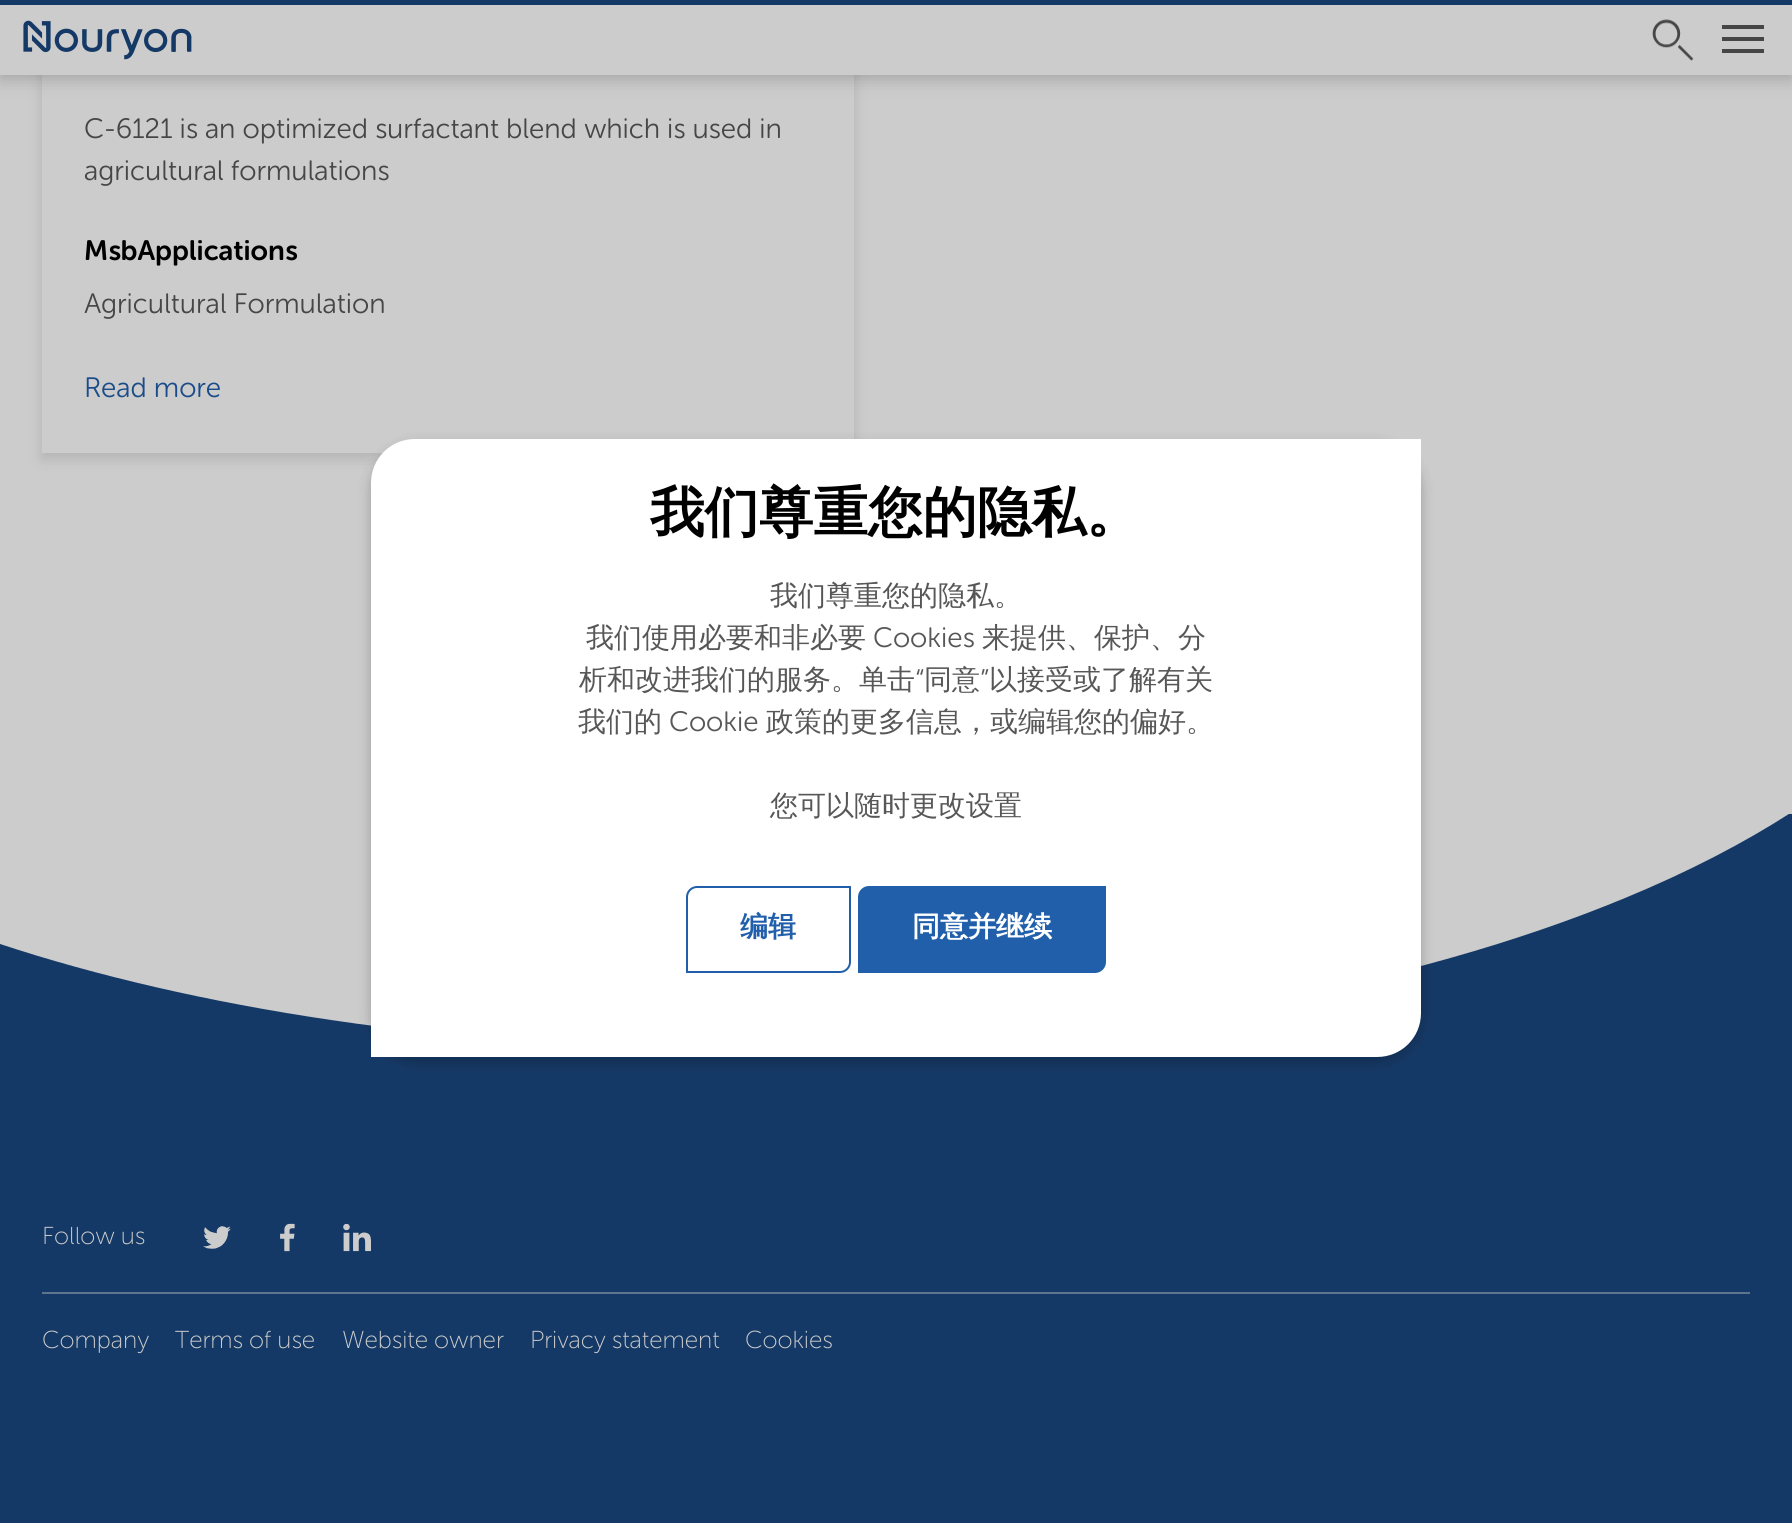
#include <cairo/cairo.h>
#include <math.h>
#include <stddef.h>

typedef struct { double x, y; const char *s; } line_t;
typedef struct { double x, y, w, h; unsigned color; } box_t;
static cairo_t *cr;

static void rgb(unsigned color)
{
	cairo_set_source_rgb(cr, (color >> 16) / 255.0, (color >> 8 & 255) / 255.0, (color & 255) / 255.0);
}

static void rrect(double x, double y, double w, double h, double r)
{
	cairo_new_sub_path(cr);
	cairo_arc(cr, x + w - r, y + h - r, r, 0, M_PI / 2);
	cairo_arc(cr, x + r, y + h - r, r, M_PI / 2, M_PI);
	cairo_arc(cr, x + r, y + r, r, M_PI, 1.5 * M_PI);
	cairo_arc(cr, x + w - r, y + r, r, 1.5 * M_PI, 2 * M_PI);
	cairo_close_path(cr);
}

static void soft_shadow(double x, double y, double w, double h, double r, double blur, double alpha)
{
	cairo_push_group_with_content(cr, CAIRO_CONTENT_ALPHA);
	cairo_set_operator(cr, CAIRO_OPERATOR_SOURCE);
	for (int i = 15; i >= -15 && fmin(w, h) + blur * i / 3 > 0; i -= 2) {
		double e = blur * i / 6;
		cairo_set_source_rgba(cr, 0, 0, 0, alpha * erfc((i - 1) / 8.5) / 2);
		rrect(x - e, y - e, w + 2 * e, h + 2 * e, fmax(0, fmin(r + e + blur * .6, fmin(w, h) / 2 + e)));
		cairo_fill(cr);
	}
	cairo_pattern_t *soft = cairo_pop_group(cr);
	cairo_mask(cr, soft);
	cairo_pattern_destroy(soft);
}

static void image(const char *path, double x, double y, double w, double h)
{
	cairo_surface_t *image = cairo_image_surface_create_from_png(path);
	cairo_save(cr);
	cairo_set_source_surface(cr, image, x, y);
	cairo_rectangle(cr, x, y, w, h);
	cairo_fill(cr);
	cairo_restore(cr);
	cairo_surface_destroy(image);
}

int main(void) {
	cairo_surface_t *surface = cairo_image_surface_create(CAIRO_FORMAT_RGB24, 1792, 1523);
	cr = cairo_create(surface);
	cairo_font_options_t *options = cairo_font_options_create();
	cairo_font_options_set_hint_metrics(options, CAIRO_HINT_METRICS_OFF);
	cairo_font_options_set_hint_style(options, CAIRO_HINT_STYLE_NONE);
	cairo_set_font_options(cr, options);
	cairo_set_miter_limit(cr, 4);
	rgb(0xcccccc);
	cairo_paint(cr);
	rgb(0x000000);
	soft_shadow(0, 4, 1792, 75, 0, 9, 0.2);
	cairo_save(cr);
	cairo_set_fill_rule(cr, CAIRO_FILL_RULE_EVEN_ODD);
	cairo_new_path(cr);
	cairo_move_to(cr, 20, 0);
	cairo_line_to(cr, 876, 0);
	cairo_line_to(cr, 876, 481);
	cairo_line_to(cr, 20, 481);
	cairo_close_path(cr);
	cairo_move_to(cr, 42, -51);
	cairo_line_to(cr, 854, -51);
	cairo_line_to(cr, 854, 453);
	cairo_line_to(cr, 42, 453);
	cairo_close_path(cr);
	cairo_clip(cr);
	soft_shadow(42, -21, 812, 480, 0, 7, 0.12);
	cairo_restore(cr);
	rgb(0xcccccc);
	cairo_rectangle(cr, 0, 5, 1792, 70);
	cairo_fill(cr);
	rgb(0x153966);
	cairo_rectangle(cr, 0, 0, 1792, 5);
	cairo_fill(cr);
	image("img/1.png", 23, 20, 169, 40);
	image("img/2.png", 1652, 19, 42, 42);
	{
		static const box_t items[] = {
			{1722, 37, 42, 4, 0x464646},
			{1722, 25, 42, 4, 0x464646},
			{1722, 49, 42, 4, 0x464646},
			{0, 814, 1792, 709, 0x153966},
		};
		for (size_t i = 0; i < sizeof items / sizeof *items; i++) {
			rgb(items[i].color);
			cairo_rectangle(cr, items[i].x, items[i].y, items[i].w, items[i].h);
			cairo_fill(cr);
		}
	}
	cairo_save(cr);
	cairo_rectangle(cr, 0, 814, 1792, 278);
	cairo_clip(cr);
	rgb(0xcccccc);
	cairo_new_path(cr);
	cairo_move_to(cr, 0, 944);
	cairo_curve_to(cr, 97, 976, 209, 1002, 331, 1020);
	cairo_curve_to(cr, 472, 1041, 628, 1051, 791, 1048);
	cairo_curve_to(cr, 955, 1045, 1110, 1030, 1251, 1004);
	cairo_curve_to(cr, 1392, 978, 1519, 942, 1625, 898);
	cairo_curve_to(cr, 1688, 872, 1744, 843, 1792, 812);
	cairo_line_to(cr, 0, 812);
	cairo_close_path(cr);
	cairo_fill(cr);
	cairo_restore(cr);
	rgb(0x000000);
	soft_shadow(371, 445, 1050, 617, 44, 7, 0.12);
	soft_shadow(371, 445, 1050, 617, 44, 7, 0.12);
	rgb(0xffffff);
	cairo_new_path(cr);
	cairo_move_to(cr, 415, 439);
	cairo_line_to(cr, 1421, 439);
	cairo_line_to(cr, 1421, 1013);
	cairo_curve_to(cr, 1421, 1037.5, 1401.5, 1057, 1377, 1057);
	cairo_line_to(cr, 371, 1057);
	cairo_line_to(cr, 371, 483);
	cairo_curve_to(cr, 371, 458.5, 390.5, 439, 415, 439);
	cairo_close_path(cr);
	cairo_fill(cr);
	cairo_new_path(cr);
	cairo_move_to(cr, 697, 887);
	cairo_line_to(cr, 850, 887);
	cairo_line_to(cr, 850, 962);
	cairo_curve_to(cr, 850, 967.5, 845.5, 972, 840, 972);
	cairo_line_to(cr, 687, 972);
	cairo_line_to(cr, 687, 897);
	cairo_curve_to(cr, 687, 891.5, 691.5, 887, 697, 887);
	cairo_close_path(cr);
	rgb(0x215fab);
	cairo_stroke(cr);
	cairo_new_path(cr);
	cairo_move_to(cr, 869, 887);
	cairo_line_to(cr, 1105, 887);
	cairo_line_to(cr, 1105, 962);
	cairo_curve_to(cr, 1105, 967.5, 1100.5, 972, 1095, 972);
	cairo_line_to(cr, 859, 972);
	cairo_line_to(cr, 859, 897);
	cairo_curve_to(cr, 859, 891.5, 863.5, 887, 869, 887);
	cairo_close_path(cr);
	cairo_fill_preserve(cr);
	cairo_stroke(cr);
	image("img/3.png", 203, 1226, 28, 23);
	image("img/4.png", 280, 1223, 15, 29);
	image("img/5.png", 343, 1223, 28, 29);
	rgb(0x5e748f);
	cairo_rectangle(cr, 42, 1292, 1708, 2);
	cairo_fill(cr);
	cairo_select_font_face(cr, "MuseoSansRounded", CAIRO_FONT_SLANT_NORMAL, CAIRO_FONT_WEIGHT_NORMAL);
	cairo_set_font_size(cr, 28);
	rgb(0x464646);
	cairo_move_to(cr, 84, 138);
	cairo_show_text(cr, "C-6121 is an optimized surfactant blend which is used in");
	cairo_move_to(cr, 84, 180);
	cairo_show_text(cr, "agricultural formulations");
	cairo_select_font_face(cr, "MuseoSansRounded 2", CAIRO_FONT_SLANT_NORMAL, CAIRO_FONT_WEIGHT_NORMAL);
	rgb(0x000000);
	cairo_move_to(cr, 84, 260);
	cairo_show_text(cr, "MsbApplications");
	cairo_select_font_face(cr, "MuseoSansRounded", CAIRO_FONT_SLANT_NORMAL, CAIRO_FONT_WEIGHT_NORMAL);
	rgb(0x464646);
	cairo_move_to(cr, 84, 313);
	cairo_show_text(cr, "Agricultural Formulation");
	rgb(0x1a4c89);
	cairo_move_to(cr, 84, 397);
	cairo_show_text(cr, "Read more");
	cairo_select_font_face(cr, "WenQuanYi Zen Hei", CAIRO_FONT_SLANT_NORMAL, CAIRO_FONT_WEIGHT_BOLD);
	cairo_set_font_size(cr, 54.5);
	rgb(0x000000);
	cairo_move_to(cr, 650, 531);
	cairo_show_text(cr, "我们尊重您的隐私。");
	cairo_select_font_face(cr, "WenQuanYi Zen Hei Medium", CAIRO_FONT_SLANT_NORMAL, CAIRO_FONT_WEIGHT_NORMAL);
	cairo_set_font_size(cr, 28);
	rgb(0x575757);
	cairo_move_to(cr, 770, 605);
	cairo_show_text(cr, "我们尊重您的隐私。");
	cairo_move_to(cr, 586, 647);
	cairo_show_text(cr, "我们使用必要和非必要");
	cairo_select_font_face(cr, "MuseoSansRounded", CAIRO_FONT_SLANT_NORMAL, CAIRO_FONT_WEIGHT_NORMAL);
	cairo_move_to(cr, 873, 647);
	cairo_show_text(cr, "Cookies");
	cairo_select_font_face(cr, "WenQuanYi Zen Hei Medium", CAIRO_FONT_SLANT_NORMAL, CAIRO_FONT_WEIGHT_NORMAL);
	cairo_move_to(cr, 982, 647);
	cairo_show_text(cr, "来提供、保护、分");
	cairo_move_to(cr, 579, 689);
	cairo_show_text(cr, "析和改进我们的服务。单击");
	cairo_select_font_face(cr, "MuseoSansRounded", CAIRO_FONT_SLANT_NORMAL, CAIRO_FONT_WEIGHT_NORMAL);
	cairo_move_to(cr, 915, 689);
	cairo_show_text(cr, "“");
	cairo_select_font_face(cr, "WenQuanYi Zen Hei Medium", CAIRO_FONT_SLANT_NORMAL, CAIRO_FONT_WEIGHT_NORMAL);
	cairo_move_to(cr, 924, 689);
	cairo_show_text(cr, "同意");
	cairo_select_font_face(cr, "MuseoSansRounded", CAIRO_FONT_SLANT_NORMAL, CAIRO_FONT_WEIGHT_NORMAL);
	cairo_move_to(cr, 980, 689);
	cairo_show_text(cr, "”");
	cairo_select_font_face(cr, "WenQuanYi Zen Hei Medium", CAIRO_FONT_SLANT_NORMAL, CAIRO_FONT_WEIGHT_NORMAL);
	cairo_move_to(cr, 989, 689);
	cairo_show_text(cr, "以接受或了解有关");
	cairo_move_to(cr, 578, 731);
	cairo_show_text(cr, "我们的");
	cairo_select_font_face(cr, "MuseoSansRounded", CAIRO_FONT_SLANT_NORMAL, CAIRO_FONT_WEIGHT_NORMAL);
	cairo_move_to(cr, 669, 731);
	cairo_show_text(cr, "Cookie");
	cairo_select_font_face(cr, "WenQuanYi Zen Hei Medium", CAIRO_FONT_SLANT_NORMAL, CAIRO_FONT_WEIGHT_NORMAL);
	cairo_move_to(cr, 766, 731);
	cairo_show_text(cr, "政策的更多信息，或编辑您的偏好。");
	cairo_move_to(cr, 770, 815);
	cairo_show_text(cr, "您可以随时更改设置");
	cairo_select_font_face(cr, "WenQuanYi Zen Hei", CAIRO_FONT_SLANT_NORMAL, CAIRO_FONT_WEIGHT_BOLD);
	rgb(0x215fab);
	cairo_move_to(cr, 740, 936);
	cairo_show_text(cr, "编辑");
	rgb(0xffffff);
	cairo_move_to(cr, 912, 936);
	cairo_show_text(cr, "同意并继续");
	cairo_select_font_face(cr, "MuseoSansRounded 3", CAIRO_FONT_SLANT_NORMAL, CAIRO_FONT_WEIGHT_NORMAL);
	cairo_set_font_size(cr, 24.5);
	rgb(0xcccccc);
	{
		static const line_t items[] = {
			{42, 1244, "Follow us"},
			{42, 1348, "Company"},
			{175, 1348, "Terms of use"},
			{342, 1348, "Website owner"},
			{530, 1348, "Privacy statement"},
			{745, 1348, "Cookies"},
		};
		for (size_t i = 0; i < sizeof items / sizeof *items; i++) {
			cairo_move_to(cr, items[i].x, items[i].y);
			cairo_show_text(cr, items[i].s);
		}
	}
	cairo_surface_write_to_png(surface, "page.png");
	cairo_font_options_destroy(options);
	cairo_destroy(cr);
	cairo_surface_destroy(surface);
	return 0;
}
